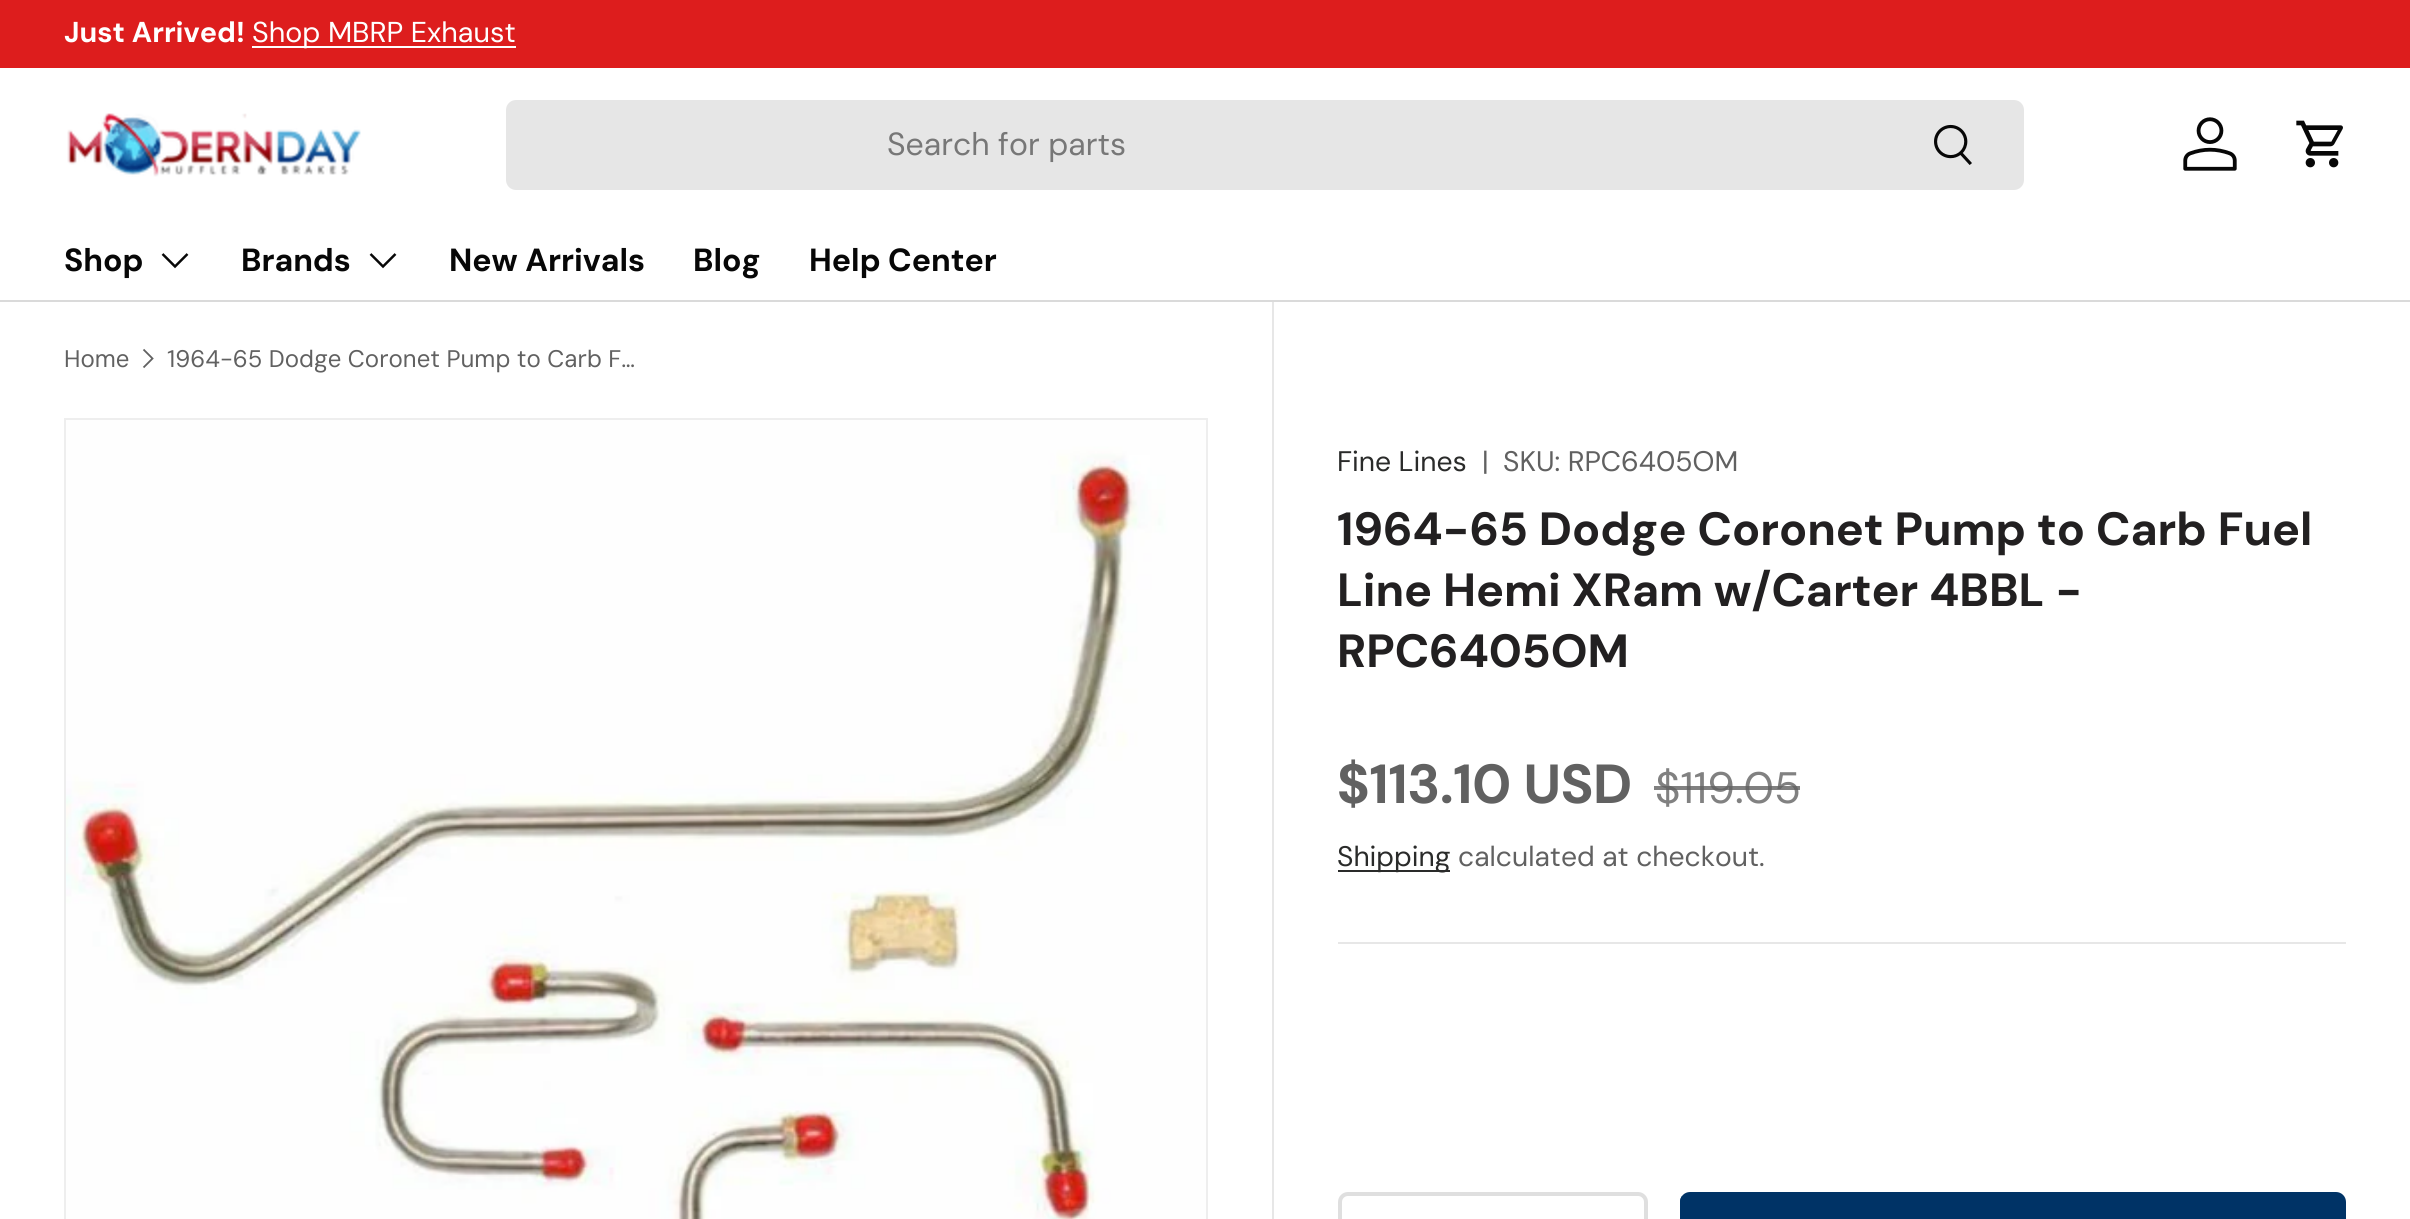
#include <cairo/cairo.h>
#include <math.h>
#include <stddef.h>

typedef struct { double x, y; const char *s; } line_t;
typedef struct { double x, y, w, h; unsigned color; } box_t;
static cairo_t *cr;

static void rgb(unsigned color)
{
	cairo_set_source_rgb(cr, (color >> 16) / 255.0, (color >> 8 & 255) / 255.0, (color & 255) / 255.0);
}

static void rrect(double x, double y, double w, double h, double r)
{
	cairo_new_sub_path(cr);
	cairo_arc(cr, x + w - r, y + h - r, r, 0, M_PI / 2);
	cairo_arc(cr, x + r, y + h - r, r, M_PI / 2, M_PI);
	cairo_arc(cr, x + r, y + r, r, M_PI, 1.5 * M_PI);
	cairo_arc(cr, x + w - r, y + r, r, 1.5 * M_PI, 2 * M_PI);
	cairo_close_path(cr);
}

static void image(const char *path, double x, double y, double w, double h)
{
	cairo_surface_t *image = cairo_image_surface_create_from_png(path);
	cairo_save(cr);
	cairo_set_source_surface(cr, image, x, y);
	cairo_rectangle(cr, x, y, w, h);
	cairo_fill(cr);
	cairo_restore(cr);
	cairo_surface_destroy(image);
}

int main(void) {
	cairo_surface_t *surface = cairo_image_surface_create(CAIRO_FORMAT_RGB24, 2410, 1219);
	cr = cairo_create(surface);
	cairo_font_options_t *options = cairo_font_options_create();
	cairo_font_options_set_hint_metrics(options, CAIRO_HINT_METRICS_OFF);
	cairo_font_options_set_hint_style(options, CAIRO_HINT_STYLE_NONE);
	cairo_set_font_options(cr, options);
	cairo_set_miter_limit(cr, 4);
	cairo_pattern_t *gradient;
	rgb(0xffffff);
	cairo_paint(cr);
	{
		static const box_t items[] = {
			{0, 0, 2410, 68, 0xdd1d1d},
			{252, 46, 264, 2, 0xffffff},
			{0, 300, 2410, 2, 0xdadada},
		};
		for (size_t i = 0; i < sizeof items / sizeof *items; i++) {
			rgb(items[i].color);
			cairo_rectangle(cr, items[i].x, items[i].y, items[i].w, items[i].h);
			cairo_fill(cr);
		}
	}
	image("img/1.png", 67, 113, 294, 64);
	rgb(0xe6e6e6);
	rrect(506, 100, 1518, 90, 10);
	cairo_fill(cr);
	image("img/2.png", 1934, 124, 38, 41);
	image("img/3.png", 2183, 117, 54, 54);
	image("img/4.png", 2296, 120, 47, 48);
	cairo_new_path(cr);
	cairo_move_to(cr, 187.5, 254);
	cairo_line_to(cr, 175, 266.5);
	cairo_line_to(cr, 162.5, 254);
	rgb(0x070707);
	cairo_set_line_width(cr, 2.5);
	cairo_stroke(cr);
	cairo_new_path(cr);
	cairo_move_to(cr, 395.5, 254);
	cairo_line_to(cr, 383, 266.5);
	cairo_line_to(cr, 370.5, 254);
	cairo_stroke(cr);
	cairo_new_path(cr);
	cairo_move_to(cr, 143.5, 349.5);
	cairo_line_to(cr, 152.5, 358.5);
	cairo_line_to(cr, 143.5, 367.5);
	rgb(0x616161);
	cairo_set_line_width(cr, 1.8);
	cairo_stroke(cr);
	cairo_rectangle(cr, 65, 419, 1142, 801);
	rgb(0xeeeeee);
	cairo_set_line_width(cr, 2);
	cairo_stroke(cr);
	image("img/5.png", 66, 420, 1140, 799);
	{
		static const box_t items[] = {
			{1272, 302, 2, 917, 0xe7e7e7},
			{1338, 870, 112, 2, 0x2a2b2a},
			{1338, 942, 1008, 2, 0xe7e7e7},
		};
		for (size_t i = 0; i < sizeof items / sizeof *items; i++) {
			rgb(items[i].color);
			cairo_rectangle(cr, items[i].x, items[i].y, items[i].w, items[i].h);
			cairo_fill(cr);
		}
	}
	rrect(1340, 1194, 306, 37, 8);
	rgb(0xdfdfdf);
	cairo_set_line_width(cr, 4);
	cairo_stroke(cr);
	cairo_save(cr);
	rrect(1680, 1192, 666, 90, 10);
	cairo_clip(cr);
	gradient = cairo_pattern_create_linear(416, 1003, 2294, 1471);
	cairo_pattern_add_color_stop_rgba(gradient, 0.6, 0.165, 0.353, 0.537, 1);
	cairo_pattern_add_color_stop_rgba(gradient, 0.6, 0, 0.2, 0.4, 1);
	cairo_pattern_add_color_stop_rgba(gradient, 1, 0, 0.2, 0.4, 1);
	cairo_set_source(cr, gradient);
	cairo_pattern_destroy(gradient);
	cairo_rectangle(cr, 1680, 1196, 662, 23);
	cairo_fill(cr);
	cairo_restore(cr);
	rrect(1682, 1194, 662, 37, 8);
	rgb(0x003366);
	cairo_stroke(cr);
	cairo_select_font_face(cr, "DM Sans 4", CAIRO_FONT_SLANT_NORMAL, CAIRO_FONT_WEIGHT_BOLD);
	cairo_set_font_size(cr, 28.75);
	rgb(0xffffff);
	cairo_move_to(cr, 64, 42);
	cairo_show_text(cr, "Just Arrived!");
	cairo_select_font_face(cr, "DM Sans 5", CAIRO_FONT_SLANT_NORMAL, CAIRO_FONT_WEIGHT_NORMAL);
	cairo_move_to(cr, 252, 42);
	cairo_show_text(cr, "Shop MBRP Exhaust");
	cairo_select_font_face(cr, "DM Sans 4", CAIRO_FONT_SLANT_NORMAL, CAIRO_FONT_WEIGHT_NORMAL);
	cairo_set_font_size(cr, 32);
	rgb(0x777777);
	cairo_move_to(cr, 887, 155);
	cairo_show_text(cr, "Search for parts");
	cairo_select_font_face(cr, "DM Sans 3", CAIRO_FONT_SLANT_NORMAL, CAIRO_FONT_WEIGHT_BOLD);
	rgb(0x070707);
	{
		static const line_t items[] = {
			{64, 271, "Shop"},
			{241, 271, "Brands"},
			{449, 271, "New Arrivals"},
			{693, 271, "Blog"},
			{809, 271, "Help Center"},
		};
		for (size_t i = 0; i < sizeof items / sizeof *items; i++) {
			cairo_move_to(cr, items[i].x, items[i].y);
			cairo_show_text(cr, items[i].s);
		}
	}
	cairo_select_font_face(cr, "DM Sans", CAIRO_FONT_SLANT_NORMAL, CAIRO_FONT_WEIGHT_NORMAL);
	cairo_set_font_size(cr, 24);
	rgb(0x616161);
	cairo_move_to(cr, 64, 367);
	cairo_show_text(cr, "Home");
	cairo_move_to(cr, 167, 367);
	cairo_show_text(cr, "1964-65 Dodge Coronet Pump to Carb F…");
	cairo_select_font_face(cr, "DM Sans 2", CAIRO_FONT_SLANT_NORMAL, CAIRO_FONT_WEIGHT_NORMAL);
	cairo_set_font_size(cr, 28.25);
	rgb(0x2a2b2a);
	cairo_move_to(cr, 1337, 471);
	cairo_show_text(cr, "Fine Lines");
	rgb(0x616161);
	cairo_move_to(cr, 1482, 471);
	cairo_show_text(cr, "|");
	cairo_move_to(cr, 1503, 471);
	cairo_show_text(cr, "SKU: RPC6405OM");
	cairo_select_font_face(cr, "DM Sans", CAIRO_FONT_SLANT_NORMAL, CAIRO_FONT_WEIGHT_BOLD);
	cairo_set_font_size(cr, 46.55);
	rgb(0x222021);
	{
		static const line_t items[] = {
			{1337, 545, "1964-65 Dodge Coronet Pump to Carb Fuel"},
			{1337, 606, "Line Hemi XRam w/Carter 4BBL -"},
			{1337, 667, "RPC6405OM"},
		};
		for (size_t i = 0; i < sizeof items / sizeof *items; i++) {
			cairo_move_to(cr, items[i].x, items[i].y);
			cairo_show_text(cr, items[i].s);
		}
	}
	cairo_select_font_face(cr, "DM Sans 2", CAIRO_FONT_SLANT_NORMAL, CAIRO_FONT_WEIGHT_BOLD);
	cairo_set_font_size(cr, 55);
	rgb(0x616161);
	cairo_move_to(cr, 1337, 803);
	cairo_show_text(cr, "$113.10 USD");
	cairo_select_font_face(cr, "DM Sans 3", CAIRO_FONT_SLANT_NORMAL, CAIRO_FONT_WEIGHT_NORMAL);
	cairo_set_font_size(cr, 44);
	rgb(0x818181);
	cairo_move_to(cr, 1655, 803);
	cairo_show_text(cr, "$119.05");
	cairo_set_source_rgba(cr, 0.38, 0.38, 0.38, 0.8);
	cairo_rectangle(cr, 1654, 786, 146, 4);
	cairo_fill(cr);
	cairo_select_font_face(cr, "DM Sans 2", CAIRO_FONT_SLANT_NORMAL, CAIRO_FONT_WEIGHT_NORMAL);
	cairo_set_font_size(cr, 28.25);
	rgb(0x2a2b2a);
	cairo_move_to(cr, 1337, 866);
	cairo_show_text(cr, "Shipping");
	rgb(0x616161);
	cairo_move_to(cr, 1458, 866);
	cairo_show_text(cr, "calculated at checkout.");
	cairo_surface_write_to_png(surface, "page.png");
	cairo_font_options_destroy(options);
	cairo_destroy(cr);
	cairo_surface_destroy(surface);
	return 0;
}
